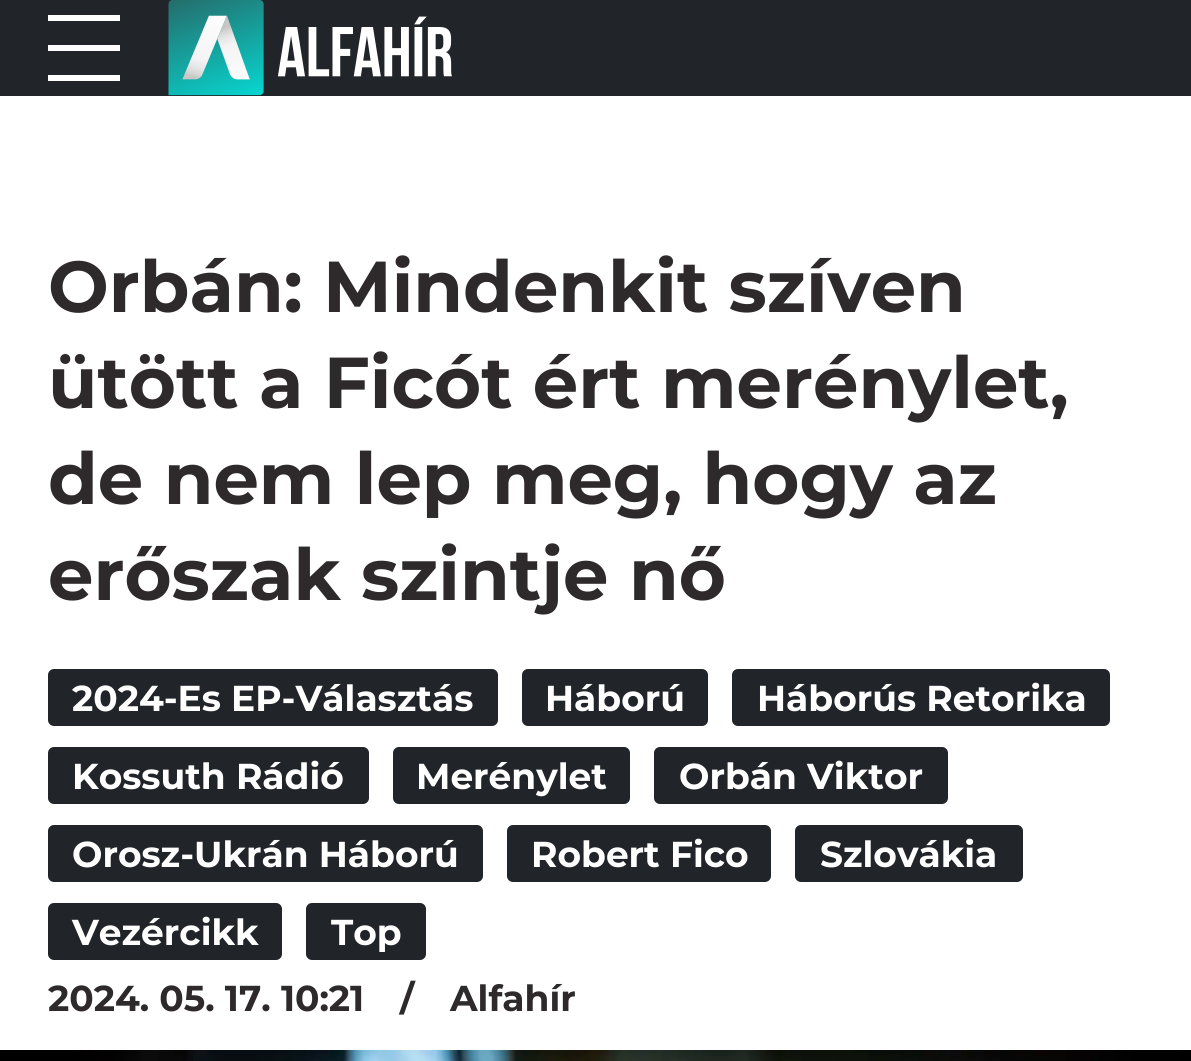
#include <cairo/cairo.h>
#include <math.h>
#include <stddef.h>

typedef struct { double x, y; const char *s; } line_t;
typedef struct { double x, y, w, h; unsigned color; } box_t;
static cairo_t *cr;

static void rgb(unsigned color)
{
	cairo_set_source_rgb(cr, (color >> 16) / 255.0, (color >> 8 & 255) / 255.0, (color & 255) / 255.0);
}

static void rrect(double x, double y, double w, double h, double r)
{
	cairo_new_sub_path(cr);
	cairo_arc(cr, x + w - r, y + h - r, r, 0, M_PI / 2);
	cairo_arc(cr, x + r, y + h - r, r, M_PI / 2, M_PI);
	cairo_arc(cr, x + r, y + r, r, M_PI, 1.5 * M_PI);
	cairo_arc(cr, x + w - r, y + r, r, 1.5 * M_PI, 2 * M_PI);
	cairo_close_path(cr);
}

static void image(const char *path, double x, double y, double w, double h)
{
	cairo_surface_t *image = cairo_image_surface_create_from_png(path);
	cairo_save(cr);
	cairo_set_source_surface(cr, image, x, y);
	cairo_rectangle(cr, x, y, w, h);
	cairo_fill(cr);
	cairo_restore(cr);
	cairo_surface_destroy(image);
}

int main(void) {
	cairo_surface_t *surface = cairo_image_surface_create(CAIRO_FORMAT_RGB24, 1191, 1061);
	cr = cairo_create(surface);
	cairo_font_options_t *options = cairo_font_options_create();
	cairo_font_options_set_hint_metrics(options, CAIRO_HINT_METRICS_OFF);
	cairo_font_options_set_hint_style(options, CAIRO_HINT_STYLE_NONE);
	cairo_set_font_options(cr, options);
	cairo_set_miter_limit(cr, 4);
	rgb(0xffffff);
	cairo_paint(cr);
	{
		static const box_t items[] = {
			{0, 0, 1191, 96, 0x212529},
			{48, 15, 72, 6, 0xffffff},
			{48, 45, 72, 6, 0xffffff},
			{48, 75, 72, 6, 0xffffff},
		};
		for (size_t i = 0; i < sizeof items / sizeof *items; i++) {
			rgb(items[i].color);
			cairo_rectangle(cr, items[i].x, items[i].y, items[i].w, items[i].h);
			cairo_fill(cr);
		}
	}
	image("img/1.png", 168, 0, 284, 96);
	rgb(0x212529);
	rrect(48, 669, 450, 57, 6);
	cairo_fill(cr);
	rrect(522, 669, 186, 57, 6);
	cairo_fill(cr);
	rrect(732, 669, 378, 57, 6);
	cairo_fill(cr);
	rrect(48, 747, 321, 57, 6);
	cairo_fill(cr);
	rrect(393, 747, 237, 57, 6);
	cairo_fill(cr);
	rrect(654, 747, 294, 57, 6);
	cairo_fill(cr);
	rrect(48, 825, 435, 57, 6);
	cairo_fill(cr);
	rrect(507, 825, 264, 57, 6);
	cairo_fill(cr);
	rrect(795, 825, 228, 57, 6);
	cairo_fill(cr);
	rrect(48, 903, 234, 57, 6);
	cairo_fill(cr);
	rrect(306, 903, 120, 57, 6);
	cairo_fill(cr);
	image("img/2.png", 0, 1050, 1191, 11);
	cairo_select_font_face(cr, "Montserrat", CAIRO_FONT_SLANT_NORMAL, CAIRO_FONT_WEIGHT_BOLD);
	cairo_set_font_size(cr, 72);
	rgb(0x2e292a);
	{
		static const line_t items[] = {
			{48, 312, "Orbán: Mindenkit szíven"},
			{48, 408, "ütött a Ficót ért merénylet,"},
			{48, 504, "de nem lep meg, hogy az"},
			{48, 600, "erőszak szintje nő"},
		};
		for (size_t i = 0; i < sizeof items / sizeof *items; i++) {
			cairo_move_to(cr, items[i].x, items[i].y);
			cairo_show_text(cr, items[i].s);
		}
	}
	cairo_set_font_size(cr, 36);
	rgb(0xffffff);
	{
		static const line_t items[] = {
			{72, 711, "2024-Es EP-Választás"},
			{545, 711, "Háború"},
			{757, 711, "Háborús Retorika"},
			{72, 789, "Kossuth Rádió"},
			{416, 789, "Merénylet"},
			{679, 789, "Orbán Viktor"},
			{72, 867, "Orosz-Ukrán Háború"},
			{531, 867, "Robert Fico"},
			{820, 867, "Szlovákia"},
			{72, 945, "Vezércikk"},
			{331, 945, "Top"},
		};
		for (size_t i = 0; i < sizeof items / sizeof *items; i++) {
			cairo_move_to(cr, items[i].x, items[i].y);
			cairo_show_text(cr, items[i].s);
		}
	}
	rgb(0x2e292a);
	{
		static const line_t items[] = {
			{48, 1011, "2024. 05. 17. 10:21"},
			{400, 1011, "/"},
			{450, 1011, "Alfahír"},
		};
		for (size_t i = 0; i < sizeof items / sizeof *items; i++) {
			cairo_move_to(cr, items[i].x, items[i].y);
			cairo_show_text(cr, items[i].s);
		}
	}
	cairo_surface_write_to_png(surface, "page.png");
	cairo_font_options_destroy(options);
	cairo_destroy(cr);
	cairo_surface_destroy(surface);
	return 0;
}
